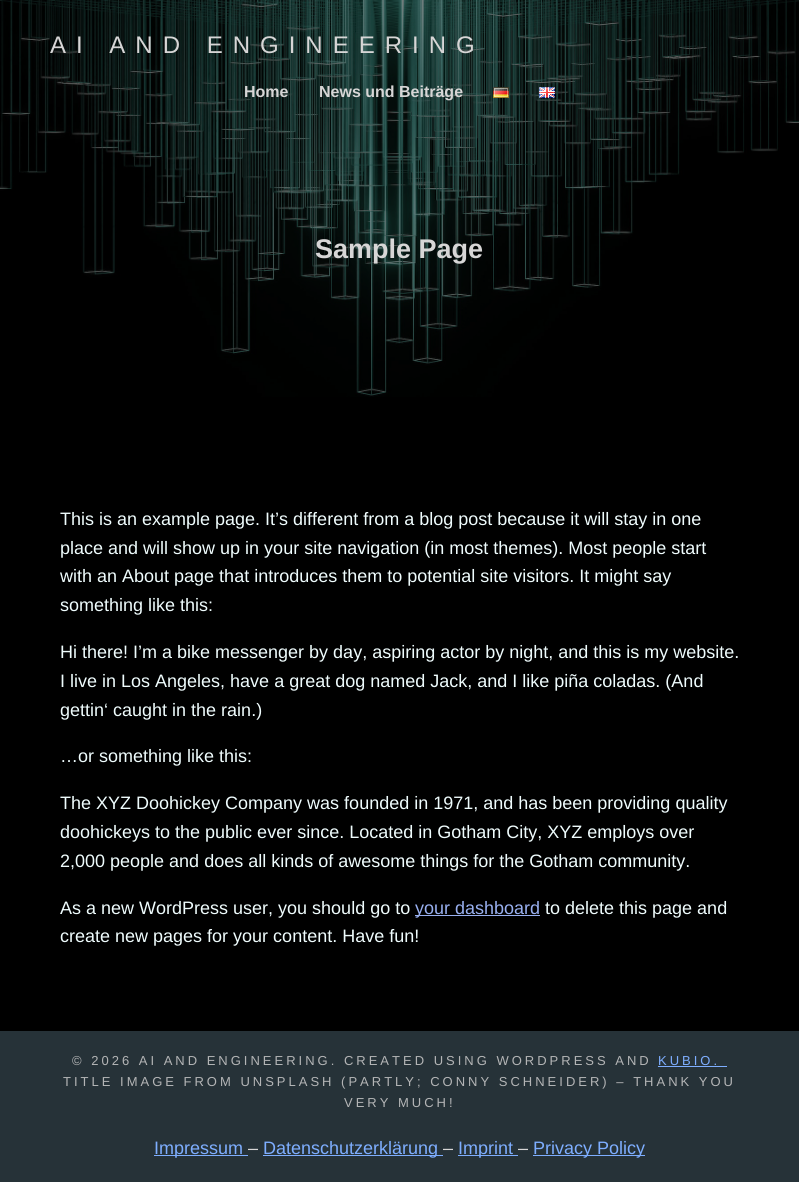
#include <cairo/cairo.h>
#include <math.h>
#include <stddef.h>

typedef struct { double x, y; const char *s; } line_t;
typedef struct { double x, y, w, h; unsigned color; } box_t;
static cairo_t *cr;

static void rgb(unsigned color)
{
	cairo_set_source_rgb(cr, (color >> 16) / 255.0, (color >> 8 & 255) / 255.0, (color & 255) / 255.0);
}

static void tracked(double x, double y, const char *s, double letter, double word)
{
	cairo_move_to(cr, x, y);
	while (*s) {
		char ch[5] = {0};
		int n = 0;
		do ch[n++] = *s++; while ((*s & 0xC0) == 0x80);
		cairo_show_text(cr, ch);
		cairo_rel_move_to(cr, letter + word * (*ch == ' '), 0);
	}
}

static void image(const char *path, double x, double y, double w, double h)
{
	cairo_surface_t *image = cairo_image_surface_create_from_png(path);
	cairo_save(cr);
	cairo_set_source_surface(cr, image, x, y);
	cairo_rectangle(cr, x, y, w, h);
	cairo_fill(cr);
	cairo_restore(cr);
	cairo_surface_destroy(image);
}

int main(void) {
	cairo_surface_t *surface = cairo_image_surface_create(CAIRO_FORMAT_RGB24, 799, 1202);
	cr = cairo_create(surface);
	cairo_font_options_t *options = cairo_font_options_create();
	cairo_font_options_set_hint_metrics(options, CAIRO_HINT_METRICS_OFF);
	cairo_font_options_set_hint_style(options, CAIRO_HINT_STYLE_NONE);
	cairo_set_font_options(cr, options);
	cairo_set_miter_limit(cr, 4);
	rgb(0xffffff);
	cairo_paint(cr);
	image("img/3.png", 0, 0, 799, 397);
	image("img/1.png", 493, 87, 16, 11);
	image("img/2.png", 539, 87, 16, 11);
	{
		static const box_t items[] = {
			{0, 397, 799, 634, 0x000000},
			{415, 915, 125, 1, 0x98afef},
			{0, 1031, 799, 151, 0x263238},
			{658, 1066, 69, 1, 0x7eaeff},
			{154, 1155, 94, 1, 0x7eaeff},
			{263, 1155, 180, 1, 0x7eaeff},
			{458, 1155, 60, 1, 0x7eaeff},
			{533, 1155, 112, 1, 0x7eaeff},
		};
		for (size_t i = 0; i < sizeof items / sizeof *items; i++) {
			rgb(items[i].color);
			cairo_rectangle(cr, items[i].x, items[i].y, items[i].w, items[i].h);
			cairo_fill(cr);
		}
	}
	cairo_select_font_face(cr, "Liberation Sans", CAIRO_FONT_SLANT_NORMAL, CAIRO_FONT_WEIGHT_NORMAL);
	cairo_set_font_size(cr, 24);
	rgb(0xd7d6d6);
	tracked(50, 53, "AI AND ENGINEERING", 10, 0);
	cairo_select_font_face(cr, "Liberation Sans", CAIRO_FONT_SLANT_NORMAL, CAIRO_FONT_WEIGHT_BOLD);
	cairo_set_font_size(cr, 16);
	cairo_move_to(cr, 244, 97);
	cairo_show_text(cr, "Home");
	cairo_move_to(cr, 319, 97);
	cairo_show_text(cr, "News und Beiträge");
	cairo_set_font_size(cr, 27);
	cairo_move_to(cr, 315, 258);
	cairo_show_text(cr, "Sample Page");
	cairo_select_font_face(cr, "Liberation Sans", CAIRO_FONT_SLANT_NORMAL, CAIRO_FONT_WEIGHT_NORMAL);
	cairo_set_font_size(cr, 18);
	rgb(0xeffcfd);
	{
		static const line_t items[] = {
			{60, 525, "This is an example page. It’s different from a blog post because it will stay in one"},
			{60, 554, "place and will show up in your site navigation (in most themes). Most people start"},
			{60, 582, "with an About page that introduces them to potential site visitors. It might say"},
			{60, 611, "something like this:"},
			{60, 658, "Hi there! I’m a bike messenger by day, aspiring actor by night, and this is my website."},
			{60, 687, "I live in Los Angeles, have a great dog named Jack, and I like piña coladas. (And"},
			{60, 716, "gettin‘ caught in the rain.)"},
			{60, 762, "…or something like this:"},
			{60, 809, "The XYZ Doohickey Company was founded in 1971, and has been providing quality"},
			{60, 838, "doohickeys to the public ever since. Located in Gotham City, XYZ employs over"},
			{60, 867, "2,000 people and does all kinds of awesome things for the Gotham community."},
			{60, 914, "As a new WordPress user, you should go to"},
		};
		for (size_t i = 0; i < sizeof items / sizeof *items; i++) {
			cairo_move_to(cr, items[i].x, items[i].y);
			cairo_show_text(cr, items[i].s);
		}
	}
	rgb(0x98afef);
	cairo_move_to(cr, 415, 914);
	cairo_show_text(cr, "your dashboard");
	rgb(0xeffcfd);
	cairo_move_to(cr, 545, 914);
	cairo_show_text(cr, "to delete this page and");
	cairo_move_to(cr, 60, 942);
	cairo_show_text(cr, "create new pages for your content. Have fun!");
	cairo_set_font_size(cr, 13);
	rgb(0xb4b5b6);
	tracked(72, 1065, "© 2026 AI AND ENGINEERING. CREATED USING WORDPRESS AND", 3, 0);
	rgb(0x7eaeff);
	tracked(658, 1065, "KUBIO.", 3, 0);
	rgb(0xb4b5b6);
	tracked(63, 1086, "TITLE IMAGE FROM UNSPLASH (PARTLY; CONNY SCHNEIDER) – THANK YOU", 3, 0);
	tracked(344, 1107, "VERY MUCH!", 3, 0);
	cairo_set_font_size(cr, 18);
	rgb(0x7eaeff);
	cairo_move_to(cr, 154, 1154);
	cairo_show_text(cr, "Impressum");
	rgb(0xd7d6d6);
	cairo_move_to(cr, 248, 1154);
	cairo_show_text(cr, "–");
	rgb(0x7eaeff);
	cairo_move_to(cr, 263, 1154);
	cairo_show_text(cr, "Datenschutzerklärung");
	rgb(0xd7d6d6);
	cairo_move_to(cr, 443, 1154);
	cairo_show_text(cr, "–");
	rgb(0x7eaeff);
	cairo_move_to(cr, 458, 1154);
	cairo_show_text(cr, "Imprint");
	rgb(0xd7d6d6);
	cairo_move_to(cr, 518, 1154);
	cairo_show_text(cr, "–");
	rgb(0x7eaeff);
	cairo_move_to(cr, 533, 1154);
	cairo_show_text(cr, "Privacy Policy");
	cairo_surface_write_to_png(surface, "page.png");
	cairo_font_options_destroy(options);
	cairo_destroy(cr);
	cairo_surface_destroy(surface);
	return 0;
}
